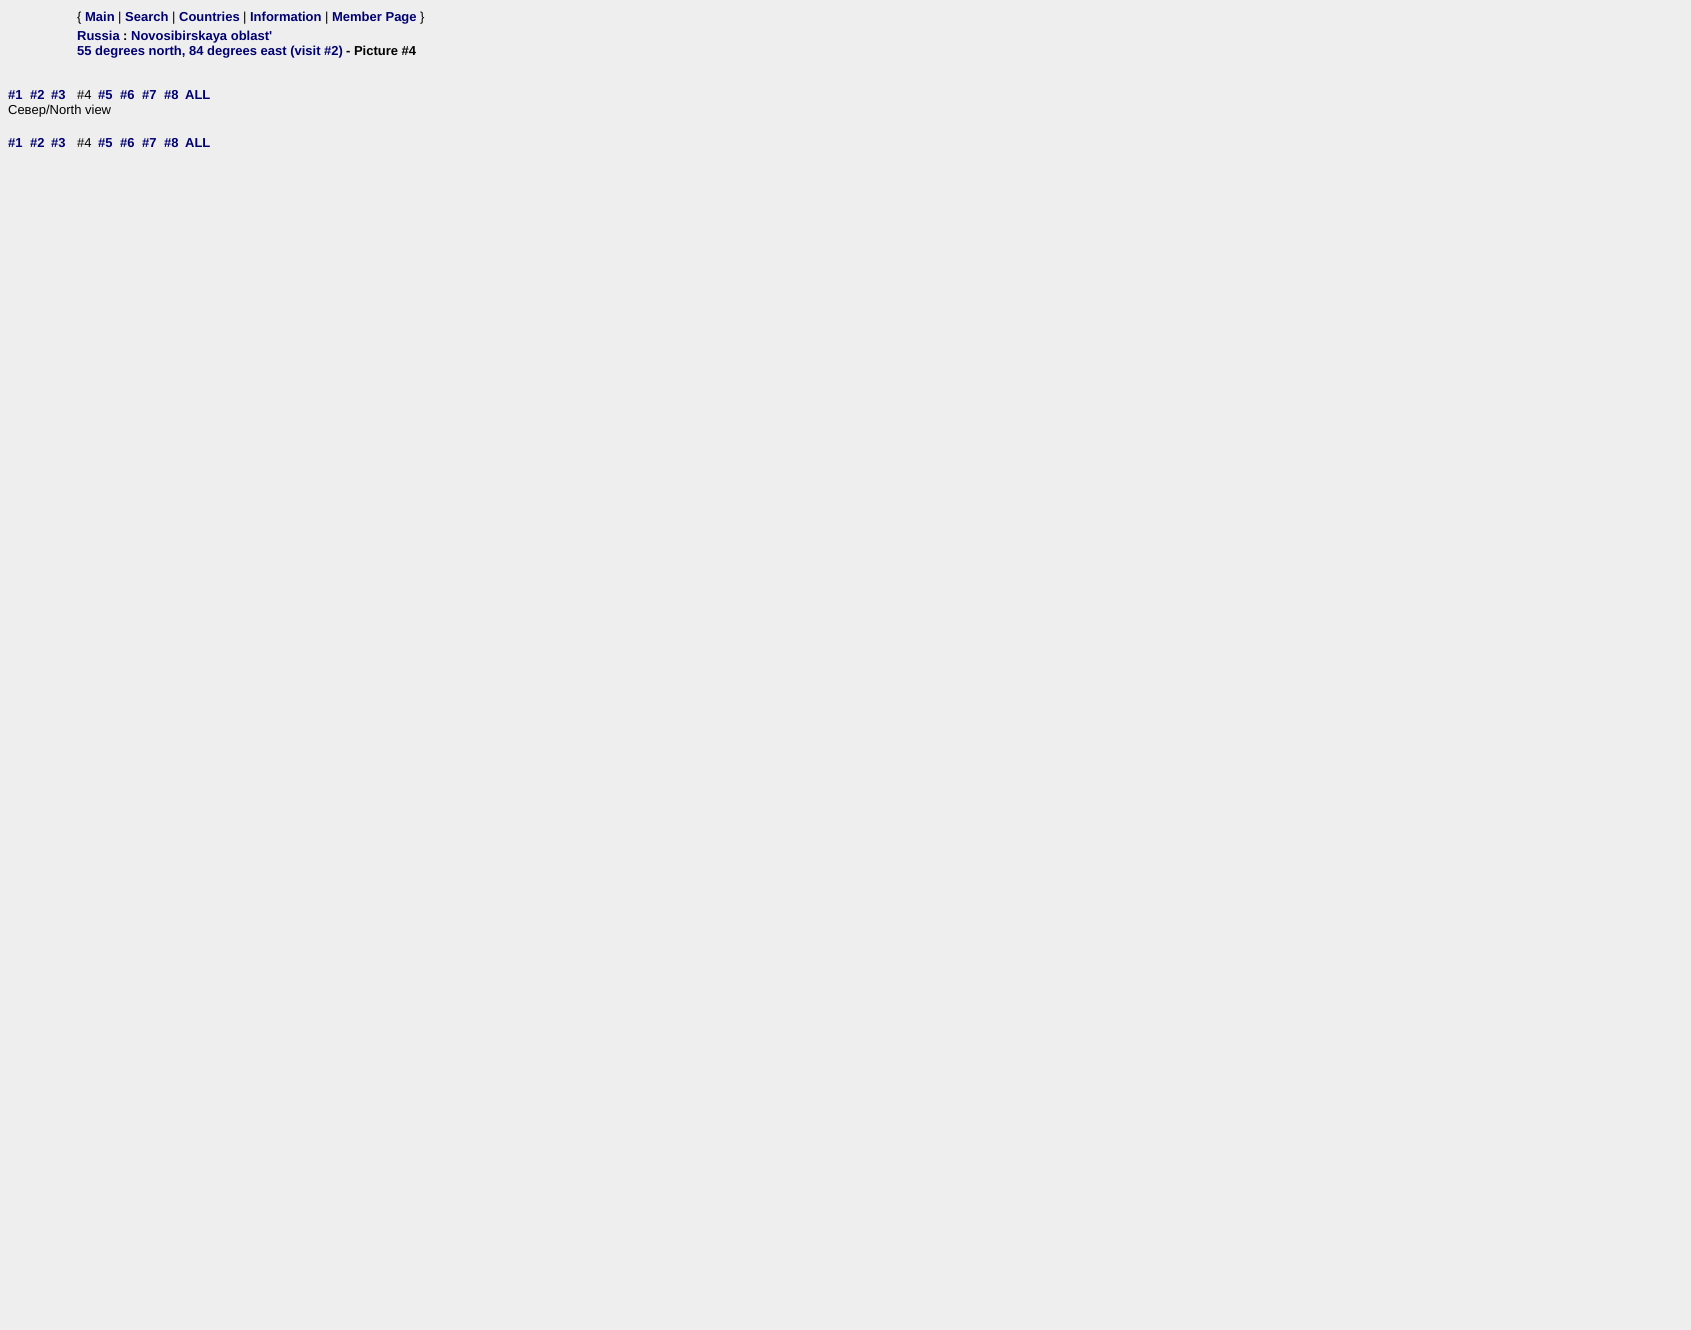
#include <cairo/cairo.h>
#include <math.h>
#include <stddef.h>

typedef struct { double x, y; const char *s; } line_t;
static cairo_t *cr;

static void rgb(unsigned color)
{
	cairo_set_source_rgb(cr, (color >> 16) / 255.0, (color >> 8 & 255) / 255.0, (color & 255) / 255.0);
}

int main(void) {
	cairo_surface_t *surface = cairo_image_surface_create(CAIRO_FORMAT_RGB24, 1691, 1330);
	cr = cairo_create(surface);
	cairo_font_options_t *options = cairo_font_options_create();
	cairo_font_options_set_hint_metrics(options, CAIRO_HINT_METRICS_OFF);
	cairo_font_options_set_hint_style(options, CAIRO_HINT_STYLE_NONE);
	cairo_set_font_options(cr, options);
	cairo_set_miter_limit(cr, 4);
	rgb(0xeeeeee);
	cairo_paint(cr);
	cairo_select_font_face(cr, "Liberation Sans", CAIRO_FONT_SLANT_NORMAL, CAIRO_FONT_WEIGHT_NORMAL);
	cairo_set_font_size(cr, 13);
	rgb(0x000000);
	cairo_move_to(cr, 77, 21);
	cairo_show_text(cr, "{");
	cairo_select_font_face(cr, "Liberation Sans", CAIRO_FONT_SLANT_NORMAL, CAIRO_FONT_WEIGHT_BOLD);
	rgb(0x000070);
	cairo_move_to(cr, 85, 21);
	cairo_show_text(cr, "Main");
	cairo_select_font_face(cr, "Liberation Sans", CAIRO_FONT_SLANT_NORMAL, CAIRO_FONT_WEIGHT_NORMAL);
	rgb(0x000000);
	cairo_move_to(cr, 118, 21);
	cairo_show_text(cr, "|");
	cairo_select_font_face(cr, "Liberation Sans", CAIRO_FONT_SLANT_NORMAL, CAIRO_FONT_WEIGHT_BOLD);
	rgb(0x000070);
	cairo_move_to(cr, 125, 21);
	cairo_show_text(cr, "Search");
	cairo_select_font_face(cr, "Liberation Sans", CAIRO_FONT_SLANT_NORMAL, CAIRO_FONT_WEIGHT_NORMAL);
	rgb(0x000000);
	cairo_move_to(cr, 172, 21);
	cairo_show_text(cr, "|");
	cairo_select_font_face(cr, "Liberation Sans", CAIRO_FONT_SLANT_NORMAL, CAIRO_FONT_WEIGHT_BOLD);
	rgb(0x000070);
	cairo_move_to(cr, 179, 21);
	cairo_show_text(cr, "Countries");
	cairo_select_font_face(cr, "Liberation Sans", CAIRO_FONT_SLANT_NORMAL, CAIRO_FONT_WEIGHT_NORMAL);
	rgb(0x000000);
	cairo_move_to(cr, 243, 21);
	cairo_show_text(cr, "|");
	cairo_select_font_face(cr, "Liberation Sans", CAIRO_FONT_SLANT_NORMAL, CAIRO_FONT_WEIGHT_BOLD);
	rgb(0x000070);
	cairo_move_to(cr, 250, 21);
	cairo_show_text(cr, "Information");
	cairo_select_font_face(cr, "Liberation Sans", CAIRO_FONT_SLANT_NORMAL, CAIRO_FONT_WEIGHT_NORMAL);
	rgb(0x000000);
	cairo_move_to(cr, 325, 21);
	cairo_show_text(cr, "|");
	cairo_select_font_face(cr, "Liberation Sans", CAIRO_FONT_SLANT_NORMAL, CAIRO_FONT_WEIGHT_BOLD);
	rgb(0x000070);
	cairo_move_to(cr, 332, 21);
	cairo_show_text(cr, "Member Page");
	cairo_select_font_face(cr, "Liberation Sans", CAIRO_FONT_SLANT_NORMAL, CAIRO_FONT_WEIGHT_NORMAL);
	rgb(0x000000);
	cairo_move_to(cr, 420, 21);
	cairo_show_text(cr, "}");
	cairo_select_font_face(cr, "Liberation Sans", CAIRO_FONT_SLANT_NORMAL, CAIRO_FONT_WEIGHT_BOLD);
	rgb(0x000070);
	cairo_move_to(cr, 77, 40);
	cairo_show_text(cr, "Russia");
	rgb(0x000000);
	cairo_move_to(cr, 123, 40);
	cairo_show_text(cr, ":");
	rgb(0x000070);
	cairo_move_to(cr, 131, 40);
	cairo_show_text(cr, "Novosibirskaya oblast'");
	cairo_move_to(cr, 77, 55);
	cairo_show_text(cr, "55 degrees north, 84 degrees east (visit #2)");
	rgb(0x000000);
	cairo_move_to(cr, 346, 55);
	cairo_show_text(cr, "- Picture #4");
	rgb(0x000070);
	{
		static const line_t items[] = {
			{8, 99, "#1"},
			{30, 99, "#2"},
			{51, 99, "#3"},
		};
		for (size_t i = 0; i < sizeof items / sizeof *items; i++) {
			cairo_move_to(cr, items[i].x, items[i].y);
			cairo_show_text(cr, items[i].s);
		}
	}
	cairo_select_font_face(cr, "Liberation Sans", CAIRO_FONT_SLANT_NORMAL, CAIRO_FONT_WEIGHT_NORMAL);
	rgb(0x000000);
	cairo_move_to(cr, 77, 99);
	cairo_show_text(cr, "#4");
	cairo_select_font_face(cr, "Liberation Sans", CAIRO_FONT_SLANT_NORMAL, CAIRO_FONT_WEIGHT_BOLD);
	rgb(0x000070);
	{
		static const line_t items[] = {
			{98, 99, "#5"},
			{120, 99, "#6"},
			{142, 99, "#7"},
			{164, 99, "#8"},
			{185, 99, "ALL"},
		};
		for (size_t i = 0; i < sizeof items / sizeof *items; i++) {
			cairo_move_to(cr, items[i].x, items[i].y);
			cairo_show_text(cr, items[i].s);
		}
	}
	cairo_select_font_face(cr, "Liberation Sans", CAIRO_FONT_SLANT_NORMAL, CAIRO_FONT_WEIGHT_NORMAL);
	rgb(0x000000);
	cairo_move_to(cr, 8, 114);
	cairo_show_text(cr, "Север/North view");
	cairo_select_font_face(cr, "Liberation Sans", CAIRO_FONT_SLANT_NORMAL, CAIRO_FONT_WEIGHT_BOLD);
	rgb(0x000070);
	{
		static const line_t items[] = {
			{8, 147, "#1"},
			{30, 147, "#2"},
			{51, 147, "#3"},
		};
		for (size_t i = 0; i < sizeof items / sizeof *items; i++) {
			cairo_move_to(cr, items[i].x, items[i].y);
			cairo_show_text(cr, items[i].s);
		}
	}
	cairo_select_font_face(cr, "Liberation Sans", CAIRO_FONT_SLANT_NORMAL, CAIRO_FONT_WEIGHT_NORMAL);
	rgb(0x000000);
	cairo_move_to(cr, 77, 147);
	cairo_show_text(cr, "#4");
	cairo_select_font_face(cr, "Liberation Sans", CAIRO_FONT_SLANT_NORMAL, CAIRO_FONT_WEIGHT_BOLD);
	rgb(0x000070);
	{
		static const line_t items[] = {
			{98, 147, "#5"},
			{120, 147, "#6"},
			{142, 147, "#7"},
			{164, 147, "#8"},
			{185, 147, "ALL"},
		};
		for (size_t i = 0; i < sizeof items / sizeof *items; i++) {
			cairo_move_to(cr, items[i].x, items[i].y);
			cairo_show_text(cr, items[i].s);
		}
	}
	cairo_surface_write_to_png(surface, "page.png");
	cairo_font_options_destroy(options);
	cairo_destroy(cr);
	cairo_surface_destroy(surface);
	return 0;
}
